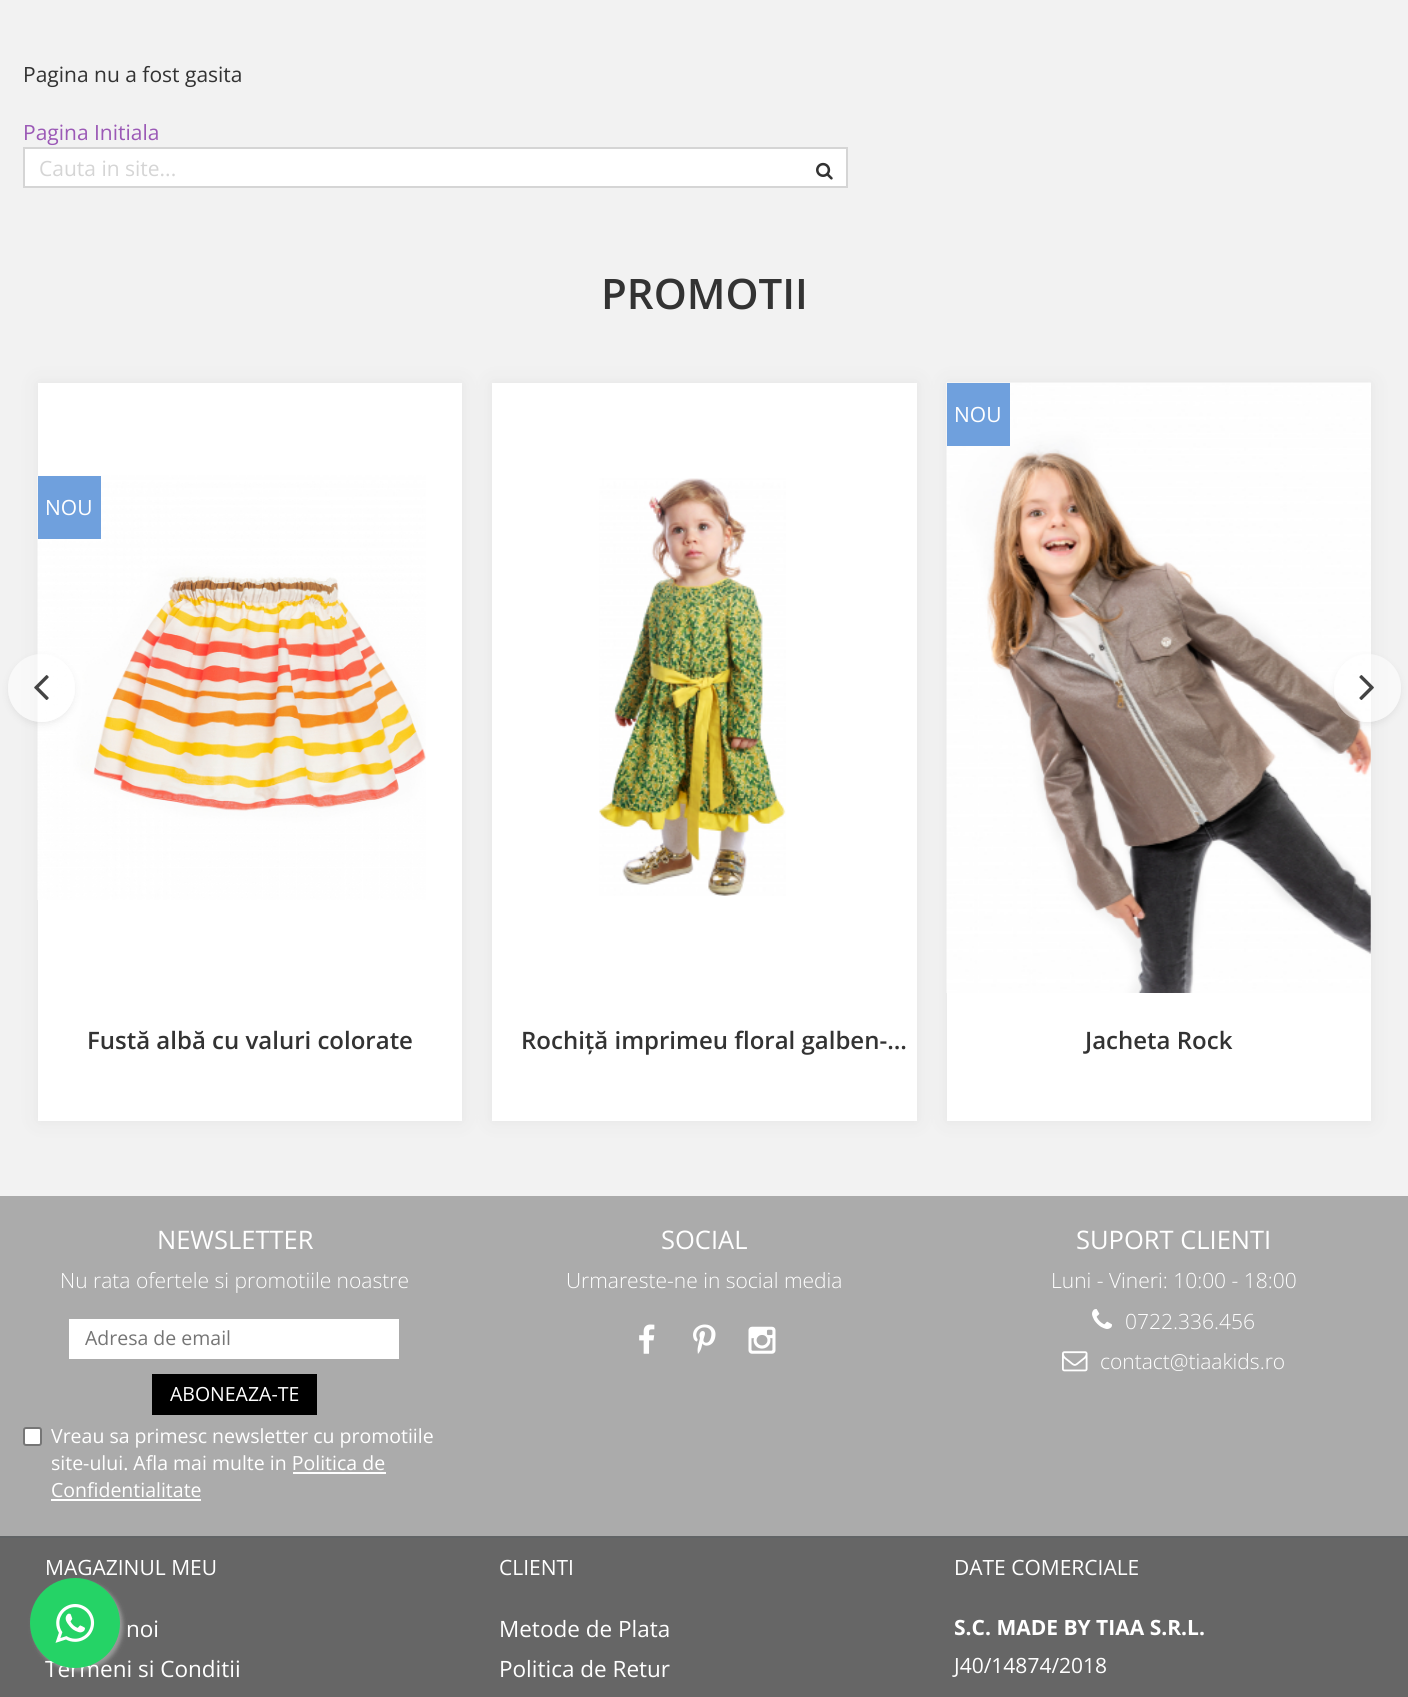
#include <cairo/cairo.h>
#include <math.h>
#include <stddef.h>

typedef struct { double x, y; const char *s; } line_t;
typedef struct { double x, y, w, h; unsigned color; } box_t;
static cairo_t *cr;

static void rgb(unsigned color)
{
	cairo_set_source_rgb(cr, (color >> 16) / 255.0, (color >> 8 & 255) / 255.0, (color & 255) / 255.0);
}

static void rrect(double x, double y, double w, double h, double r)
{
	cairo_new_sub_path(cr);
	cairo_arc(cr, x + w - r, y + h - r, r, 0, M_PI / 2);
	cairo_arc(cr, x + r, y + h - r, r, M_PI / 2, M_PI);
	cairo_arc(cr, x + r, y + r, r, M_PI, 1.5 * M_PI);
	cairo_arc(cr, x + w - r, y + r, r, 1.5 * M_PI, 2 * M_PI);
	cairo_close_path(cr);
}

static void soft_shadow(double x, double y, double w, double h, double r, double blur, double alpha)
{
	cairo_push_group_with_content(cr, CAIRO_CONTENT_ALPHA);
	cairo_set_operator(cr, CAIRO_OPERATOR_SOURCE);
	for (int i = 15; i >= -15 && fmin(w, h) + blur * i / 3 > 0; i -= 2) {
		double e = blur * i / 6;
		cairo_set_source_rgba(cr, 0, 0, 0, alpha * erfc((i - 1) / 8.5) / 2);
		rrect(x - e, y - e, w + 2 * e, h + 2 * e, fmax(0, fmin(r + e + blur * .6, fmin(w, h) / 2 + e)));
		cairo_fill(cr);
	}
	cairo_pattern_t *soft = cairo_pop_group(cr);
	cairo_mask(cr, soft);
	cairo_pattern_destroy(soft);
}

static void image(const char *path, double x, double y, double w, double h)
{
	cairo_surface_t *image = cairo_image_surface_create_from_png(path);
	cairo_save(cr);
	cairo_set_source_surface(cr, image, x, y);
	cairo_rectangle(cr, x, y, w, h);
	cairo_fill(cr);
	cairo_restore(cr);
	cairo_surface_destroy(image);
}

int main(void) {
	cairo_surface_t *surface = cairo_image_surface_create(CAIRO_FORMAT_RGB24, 1408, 1697);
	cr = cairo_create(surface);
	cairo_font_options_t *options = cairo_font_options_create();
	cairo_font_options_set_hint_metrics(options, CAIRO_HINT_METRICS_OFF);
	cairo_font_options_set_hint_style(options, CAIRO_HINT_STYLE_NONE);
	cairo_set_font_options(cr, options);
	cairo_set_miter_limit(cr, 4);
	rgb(0xf2f2f2);
	cairo_paint(cr);
	rgb(0xffffff);
	cairo_rectangle(cr, 24, 148, 823, 39);
	cairo_fill_preserve(cr);
	rgb(0xd5d5d5);
	cairo_stroke(cr);
	image("img/1.png", 816, 162, 17, 18);
	rgb(0xbfbfbf);
	soft_shadow(38, 383, 424, 738, 0, 9, 0.27);
	rgb(0xffffff);
	cairo_rectangle(cr, 38, 383, 424, 738);
	cairo_fill(cr);
	image("img/2.png", 37, 475, 389, 425);
	rgb(0x6fa0dd);
	cairo_rectangle(cr, 38, 476, 63, 63);
	cairo_fill(cr);
	rgb(0xbfbfbf);
	soft_shadow(492, 383, 425, 738, 0, 9, 0.27);
	rgb(0xffffff);
	cairo_rectangle(cr, 492, 383, 425, 738);
	cairo_fill(cr);
	image("img/3.png", 599, 478, 187, 418);
	rgb(0xbfbfbf);
	soft_shadow(947, 383, 424, 738, 0, 9, 0.27);
	rgb(0xffffff);
	cairo_rectangle(cr, 947, 383, 424, 738);
	cairo_fill(cr);
	image("img/4.png", 946, 382, 425, 611);
	rgb(0x6fa0dd);
	cairo_rectangle(cr, 947, 383, 63, 63);
	cairo_fill(cr);
	cairo_save(cr);
	cairo_set_fill_rule(cr, CAIRO_FILL_RULE_EVEN_ODD);
	cairo_new_path(cr);
	cairo_move_to(cr, 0, 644);
	cairo_line_to(cr, 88, 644);
	cairo_line_to(cr, 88, 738);
	cairo_line_to(cr, 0, 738);
	cairo_close_path(cr);
	cairo_move_to(cr, 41.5, 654);
	cairo_curve_to(cr, 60, 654, 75, 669, 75, 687.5);
	cairo_line_to(cr, 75, 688.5);
	cairo_curve_to(cr, 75, 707, 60, 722, 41.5, 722);
	cairo_curve_to(cr, 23, 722, 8, 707, 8, 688.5);
	cairo_line_to(cr, 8, 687.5);
	cairo_curve_to(cr, 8, 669, 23, 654, 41.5, 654);
	cairo_close_path(cr);
	cairo_clip(cr);
	rgb(0x000000);
	soft_shadow(11, 660, 61, 62, 30.5, 5, 0.12);
	cairo_restore(cr);
	cairo_set_source_rgba(cr, 1, 1, 1, 0.5);
	rrect(8, 654, 67, 68, 33.5);
	cairo_fill(cr);
	image("img/5.png", 34, 675, 15, 25);
	cairo_save(cr);
	cairo_set_fill_rule(cr, CAIRO_FILL_RULE_EVEN_ODD);
	cairo_new_path(cr);
	cairo_move_to(cr, 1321, 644);
	cairo_line_to(cr, 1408, 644);
	cairo_line_to(cr, 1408, 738);
	cairo_line_to(cr, 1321, 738);
	cairo_close_path(cr);
	cairo_move_to(cr, 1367.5, 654);
	cairo_curve_to(cr, 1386, 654, 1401, 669, 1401, 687.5);
	cairo_line_to(cr, 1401, 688.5);
	cairo_curve_to(cr, 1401, 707, 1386, 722, 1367.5, 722);
	cairo_curve_to(cr, 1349, 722, 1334, 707, 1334, 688.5);
	cairo_line_to(cr, 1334, 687.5);
	cairo_curve_to(cr, 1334, 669, 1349, 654, 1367.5, 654);
	cairo_close_path(cr);
	cairo_clip(cr);
	rgb(0x000000);
	soft_shadow(1337, 660, 61, 62, 30.5, 5, 0.12);
	cairo_restore(cr);
	rrect(1334, 654, 67, 68, 33.5);
	cairo_fill(cr);
	image("img/6.png", 1359, 675, 15, 25);
	{
		static const box_t items[] = {
			{0, 1196, 1408, 340, 0xababab},
			{0, 1536, 1408, 2, 0x616466},
			{69, 1319, 330, 40, 0xffffff},
			{152, 1374, 165, 41, 0x000000},
		};
		for (size_t i = 0; i < sizeof items / sizeof *items; i++) {
			rgb(items[i].color);
			cairo_rectangle(cr, items[i].x, items[i].y, items[i].w, items[i].h);
			cairo_fill(cr);
		}
	}
	rgb(0xffffff);
	rrect(24, 1428, 17, 17, 2);
	cairo_fill_preserve(cr);
	rgb(0x767676);
	cairo_stroke(cr);
	rgb(0xffffff);
	cairo_rectangle(cr, 293, 1472, 93, 2);
	cairo_fill(cr);
	cairo_rectangle(cr, 51, 1499, 150, 2);
	cairo_fill(cr);
	image("img/7.png", 639, 1324, 16, 30);
	image("img/8.png", 693, 1324, 23, 30);
	image("img/9.png", 748, 1326, 28, 28);
	image("img/10.png", 1092, 1309, 20, 20);
	image("img/11.png", 1062, 1351, 26, 21);
	rgb(0x666666);
	cairo_rectangle(cr, 0, 1538, 1408, 159);
	cairo_fill(cr);
	rgb(0x999999);
	soft_shadow(33, 1581, 90, 90, 45, 2, 1);
	cairo_select_font_face(cr, "Open Sans", CAIRO_FONT_SLANT_NORMAL, CAIRO_FONT_WEIGHT_NORMAL);
	cairo_set_font_size(cr, 21);
	rgb(0x333333);
	cairo_move_to(cr, 23, 82);
	cairo_show_text(cr, "Pagina nu a fost gasita");
	rgb(0x9b59b6);
	cairo_move_to(cr, 23, 140);
	cairo_show_text(cr, "Pagina Initiala");
	rgb(0xd5d5d5);
	cairo_move_to(cr, 39, 176);
	cairo_show_text(cr, "Cauta in site...");
	cairo_select_font_face(cr, "Open Sans SemiBold", CAIRO_FONT_SLANT_NORMAL, CAIRO_FONT_WEIGHT_NORMAL);
	cairo_set_font_size(cr, 42);
	rgb(0x333333);
	cairo_move_to(cr, 601, 309);
	cairo_show_text(cr, "PROMOTII");
	cairo_select_font_face(cr, "Open Sans", CAIRO_FONT_SLANT_NORMAL, CAIRO_FONT_WEIGHT_NORMAL);
	cairo_set_font_size(cr, 21);
	rgb(0xffffff);
	cairo_move_to(cr, 45, 515);
	cairo_show_text(cr, "NOU");
	cairo_select_font_face(cr, "Open Sans SemiBold", CAIRO_FONT_SLANT_NORMAL, CAIRO_FONT_WEIGHT_NORMAL);
	cairo_set_font_size(cr, 24);
	rgb(0x333333);
	cairo_move_to(cr, 87, 1049);
	cairo_show_text(cr, "Fustă albă cu valuri colorate");
	cairo_move_to(cr, 521, 1049);
	cairo_show_text(cr, "Rochiță imprimeu floral galben-…");
	cairo_select_font_face(cr, "Open Sans", CAIRO_FONT_SLANT_NORMAL, CAIRO_FONT_WEIGHT_NORMAL);
	cairo_set_font_size(cr, 21);
	rgb(0xffffff);
	cairo_move_to(cr, 954, 422);
	cairo_show_text(cr, "NOU");
	cairo_select_font_face(cr, "Open Sans SemiBold", CAIRO_FONT_SLANT_NORMAL, CAIRO_FONT_WEIGHT_NORMAL);
	cairo_set_font_size(cr, 24);
	rgb(0x333333);
	cairo_move_to(cr, 1085, 1049);
	cairo_show_text(cr, "Jacheta Rock");
	cairo_select_font_face(cr, "Open Sans", CAIRO_FONT_SLANT_NORMAL, CAIRO_FONT_WEIGHT_NORMAL);
	cairo_set_font_size(cr, 25.5);
	rgb(0xffffff);
	cairo_move_to(cr, 157, 1249);
	cairo_show_text(cr, "NEWSLETTER");
	cairo_select_font_face(cr, "Open Sans Light", CAIRO_FONT_SLANT_NORMAL, CAIRO_FONT_WEIGHT_NORMAL);
	cairo_set_font_size(cr, 21);
	cairo_move_to(cr, 60, 1288);
	cairo_show_text(cr, "Nu rata ofertele si promotiile noastre");
	cairo_select_font_face(cr, "Open Sans", CAIRO_FONT_SLANT_NORMAL, CAIRO_FONT_WEIGHT_NORMAL);
	cairo_set_font_size(cr, 19.5);
	rgb(0x757575);
	cairo_move_to(cr, 85, 1345);
	cairo_show_text(cr, "Adresa de email");
	rgb(0xffffff);
	{
		static const line_t items[] = {
			{170, 1401, "ABONEAZA-TE"},
			{51, 1443, "Vreau sa primesc newsletter cu promotiile"},
			{51, 1470, "site-ului. Afla mai multe in Politica de"},
			{51, 1497, "Confidentialitate"},
		};
		for (size_t i = 0; i < sizeof items / sizeof *items; i++) {
			cairo_move_to(cr, items[i].x, items[i].y);
			cairo_show_text(cr, items[i].s);
		}
	}
	cairo_set_font_size(cr, 25.5);
	cairo_move_to(cr, 661, 1249);
	cairo_show_text(cr, "SOCIAL");
	cairo_select_font_face(cr, "Open Sans Light", CAIRO_FONT_SLANT_NORMAL, CAIRO_FONT_WEIGHT_NORMAL);
	cairo_set_font_size(cr, 21);
	cairo_move_to(cr, 566, 1288);
	cairo_show_text(cr, "Urmareste-ne in social media");
	cairo_select_font_face(cr, "Open Sans", CAIRO_FONT_SLANT_NORMAL, CAIRO_FONT_WEIGHT_NORMAL);
	cairo_set_font_size(cr, 25.5);
	cairo_move_to(cr, 1076, 1249);
	cairo_show_text(cr, "SUPORT CLIENTI");
	cairo_select_font_face(cr, "Open Sans Light", CAIRO_FONT_SLANT_NORMAL, CAIRO_FONT_WEIGHT_NORMAL);
	cairo_set_font_size(cr, 21);
	{
		static const line_t items[] = {
			{1051, 1288, "Luni - Vineri: 10:00 - 18:00"},
			{1125, 1329, "0722.336.456"},
			{1100, 1369, "contact@tiaakids.ro"},
		};
		for (size_t i = 0; i < sizeof items / sizeof *items; i++) {
			cairo_move_to(cr, items[i].x, items[i].y);
			cairo_show_text(cr, items[i].s);
		}
	}
	cairo_select_font_face(cr, "Open Sans", CAIRO_FONT_SLANT_NORMAL, CAIRO_FONT_WEIGHT_NORMAL);
	cairo_move_to(cr, 45, 1575);
	cairo_show_text(cr, "MAGAZINUL MEU");
	cairo_set_font_size(cr, 22.5);
	cairo_move_to(cr, 126, 1637);
	cairo_show_text(cr, "noi");
	cairo_move_to(cr, 45, 1677);
	cairo_show_text(cr, "Termeni si Conditii");
	cairo_set_font_size(cr, 21);
	cairo_move_to(cr, 499, 1575);
	cairo_show_text(cr, "CLIENTI");
	cairo_set_font_size(cr, 22.5);
	cairo_move_to(cr, 499, 1637);
	cairo_show_text(cr, "Metode de Plata");
	cairo_move_to(cr, 499, 1677);
	cairo_show_text(cr, "Politica de Retur");
	cairo_set_font_size(cr, 21);
	cairo_move_to(cr, 954, 1575);
	cairo_show_text(cr, "DATE COMERCIALE");
	cairo_select_font_face(cr, "Open Sans", CAIRO_FONT_SLANT_NORMAL, CAIRO_FONT_WEIGHT_BOLD);
	cairo_move_to(cr, 954, 1635);
	cairo_show_text(cr, "S.C. MADE BY TIAA S.R.L.");
	cairo_select_font_face(cr, "Open Sans", CAIRO_FONT_SLANT_NORMAL, CAIRO_FONT_WEIGHT_NORMAL);
	cairo_move_to(cr, 954, 1673);
	cairo_show_text(cr, "J40/14874/2018");
	rgb(0x25d366);
	cairo_new_path(cr);
	cairo_arc(cr, 75, 1623, 45, 0, 2 * M_PI);
	cairo_fill(cr);
	image("img/12.png", 55, 1604, 40, 39);
	cairo_surface_write_to_png(surface, "page.png");
	cairo_font_options_destroy(options);
	cairo_destroy(cr);
	cairo_surface_destroy(surface);
	return 0;
}
